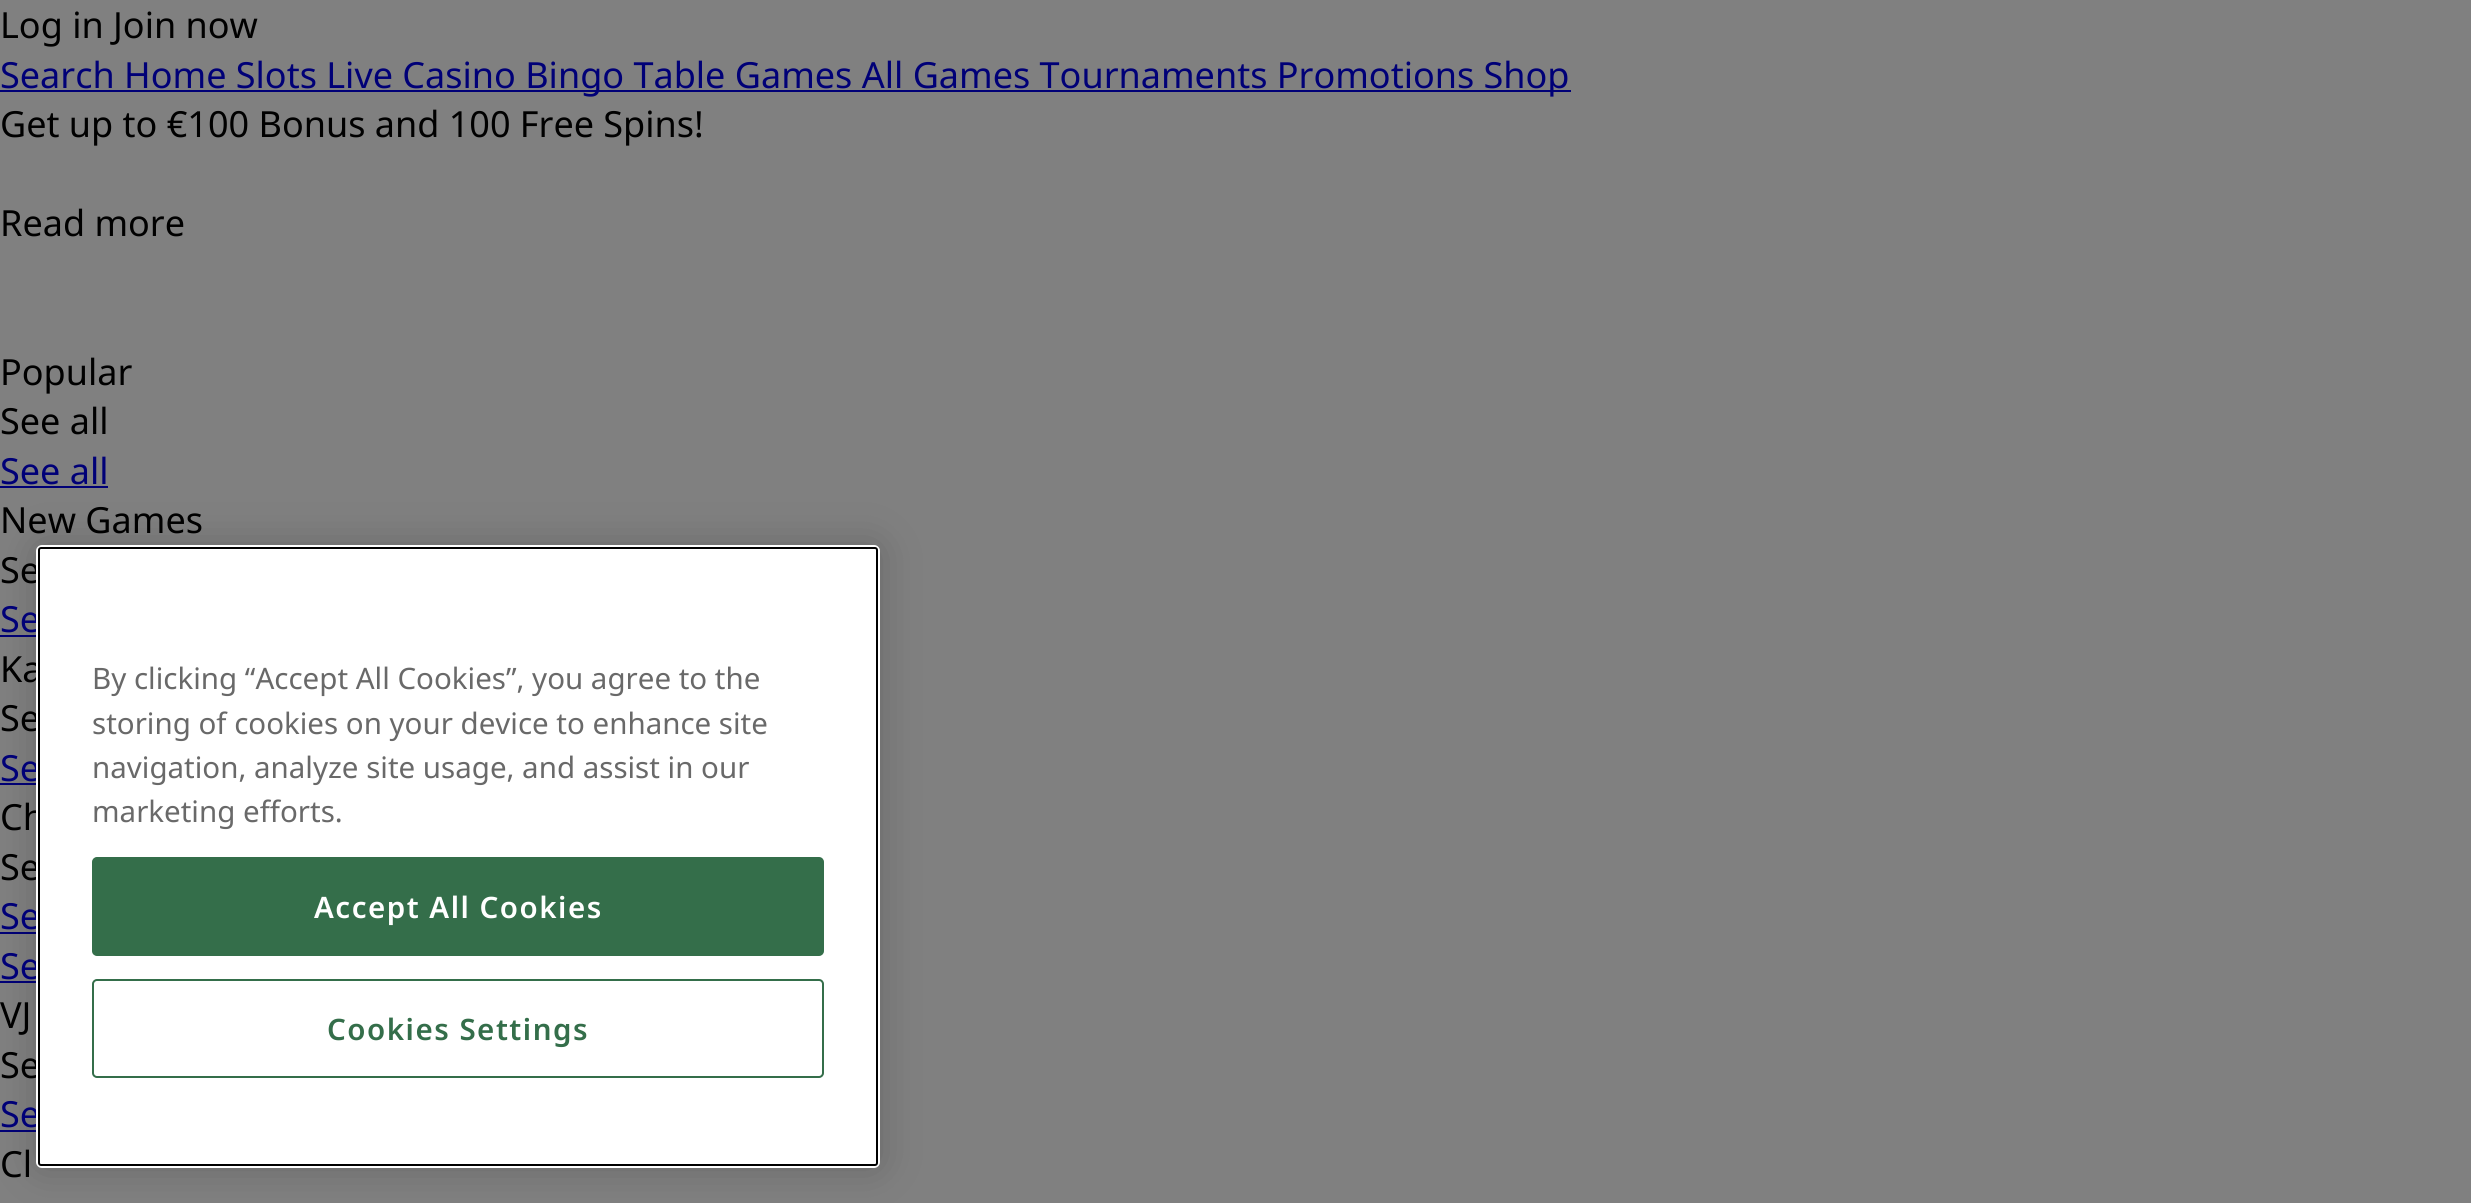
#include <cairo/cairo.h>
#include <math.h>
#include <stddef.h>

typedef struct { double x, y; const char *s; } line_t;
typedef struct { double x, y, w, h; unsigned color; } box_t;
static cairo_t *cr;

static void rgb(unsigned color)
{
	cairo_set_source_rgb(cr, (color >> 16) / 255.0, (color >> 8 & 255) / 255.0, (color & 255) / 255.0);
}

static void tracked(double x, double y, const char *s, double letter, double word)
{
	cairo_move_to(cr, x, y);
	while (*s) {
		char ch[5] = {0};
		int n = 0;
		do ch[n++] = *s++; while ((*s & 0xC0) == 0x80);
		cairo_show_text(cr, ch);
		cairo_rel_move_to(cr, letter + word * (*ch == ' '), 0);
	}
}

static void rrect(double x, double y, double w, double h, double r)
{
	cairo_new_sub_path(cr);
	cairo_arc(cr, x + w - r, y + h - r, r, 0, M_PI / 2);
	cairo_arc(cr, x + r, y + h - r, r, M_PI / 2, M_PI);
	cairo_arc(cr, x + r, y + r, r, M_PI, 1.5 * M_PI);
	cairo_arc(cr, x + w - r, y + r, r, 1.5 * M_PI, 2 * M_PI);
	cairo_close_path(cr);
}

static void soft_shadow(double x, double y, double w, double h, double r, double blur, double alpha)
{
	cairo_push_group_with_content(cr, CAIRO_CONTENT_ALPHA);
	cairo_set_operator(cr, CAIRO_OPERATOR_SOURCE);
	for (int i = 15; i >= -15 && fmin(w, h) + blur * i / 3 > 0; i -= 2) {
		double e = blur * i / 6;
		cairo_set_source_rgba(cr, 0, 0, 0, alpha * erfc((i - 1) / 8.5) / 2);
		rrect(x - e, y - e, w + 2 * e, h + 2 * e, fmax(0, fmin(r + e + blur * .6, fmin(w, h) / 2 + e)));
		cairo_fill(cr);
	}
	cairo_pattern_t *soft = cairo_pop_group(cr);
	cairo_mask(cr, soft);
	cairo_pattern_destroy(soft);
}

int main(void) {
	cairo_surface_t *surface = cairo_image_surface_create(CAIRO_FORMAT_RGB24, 2471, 1203);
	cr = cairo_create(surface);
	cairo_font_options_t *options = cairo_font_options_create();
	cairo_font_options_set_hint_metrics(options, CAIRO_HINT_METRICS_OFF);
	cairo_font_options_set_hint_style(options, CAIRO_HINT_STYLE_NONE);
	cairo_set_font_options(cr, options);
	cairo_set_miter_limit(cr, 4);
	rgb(0x808080);
	cairo_paint(cr);
	{
		static const box_t items[] = {
			{0, 90, 1571, 2, 0x000077},
			{0, 486, 108, 2, 0x000077},
			{0, 635, 36, 2, 0x000077},
			{0, 783, 36, 2, 0x000077},
			{0, 932, 36, 2, 0x000077},
			{0, 981, 36, 2, 0x000077},
			{0, 1130, 36, 2, 0x000077},
		};
		for (size_t i = 0; i < sizeof items / sizeof *items; i++) {
			rgb(items[i].color);
			cairo_rectangle(cr, items[i].x, items[i].y, items[i].w, items[i].h);
			cairo_fill(cr);
		}
	}
	rgb(0x000000);
	soft_shadow(36, 545, 844, 623, 6, 20, 0.2);
	cairo_select_font_face(cr, "Noto Sans", CAIRO_FONT_SLANT_NORMAL, CAIRO_FONT_WEIGHT_NORMAL);
	cairo_set_font_size(cr, 36);
	rgb(0x000000);
	cairo_move_to(cr, 0, 38);
	cairo_show_text(cr, "Log in Join now");
	rgb(0x000077);
	cairo_move_to(cr, 0, 88);
	cairo_show_text(cr, "Search Home Slots Live Casino Bingo Table Games All Games Tournaments Promotions Shop");
	rgb(0x000000);
	{
		static const line_t items[] = {
			{0, 137, "Get up to €100 Bonus and 100 Free Spins!"},
			{0, 236, "Read more"},
			{0, 385, "Popular"},
			{0, 434, "See all"},
		};
		for (size_t i = 0; i < sizeof items / sizeof *items; i++) {
			cairo_move_to(cr, items[i].x, items[i].y);
			cairo_show_text(cr, items[i].s);
		}
	}
	rgb(0x000077);
	cairo_move_to(cr, 0, 484);
	cairo_show_text(cr, "See all");
	rgb(0x000000);
	cairo_move_to(cr, 0, 533);
	cairo_show_text(cr, "New Games");
	cairo_move_to(cr, 0, 583);
	cairo_show_text(cr, "Se");
	rgb(0x000077);
	cairo_move_to(cr, 0, 632);
	cairo_show_text(cr, "Se");
	rgb(0x000000);
	cairo_move_to(cr, 0, 682);
	cairo_show_text(cr, "Ka");
	cairo_move_to(cr, 0, 731);
	cairo_show_text(cr, "Se");
	rgb(0x000077);
	cairo_move_to(cr, 0, 781);
	cairo_show_text(cr, "Se");
	rgb(0x000000);
	cairo_move_to(cr, 0, 830);
	cairo_show_text(cr, "Ch");
	cairo_move_to(cr, 0, 880);
	cairo_show_text(cr, "Se");
	rgb(0x000077);
	cairo_move_to(cr, 0, 929);
	cairo_show_text(cr, "Se");
	cairo_move_to(cr, 0, 979);
	cairo_show_text(cr, "Se");
	rgb(0x000000);
	cairo_move_to(cr, 0, 1028);
	cairo_show_text(cr, "VJ");
	cairo_move_to(cr, 0, 1078);
	cairo_show_text(cr, "Se");
	rgb(0x000077);
	cairo_move_to(cr, 0, 1127);
	cairo_show_text(cr, "Se");
	rgb(0x000000);
	cairo_move_to(cr, 0, 1177);
	cairo_show_text(cr, "Cl");
	rgb(0xffffff);
	rrect(36, 545, 844, 623, 6);
	cairo_fill(cr);
	rrect(39, 548, 838, 617, 2);
	rgb(0x000000);
	cairo_stroke(cr);
	cairo_set_font_size(cr, 29.5);
	rgb(0x696969);
	{
		static const line_t items[] = {
			{92, 689, "By clicking “Accept All Cookies”, you agree to the"},
			{92, 734, "storing of cookies on your device to enhance site"},
			{92, 778, "navigation, analyze site usage, and assist in our"},
			{92, 822, "marketing efforts."},
		};
		for (size_t i = 0; i < sizeof items / sizeof *items; i++) {
			cairo_move_to(cr, items[i].x, items[i].y);
			cairo_show_text(cr, items[i].s);
		}
	}
	rgb(0x346e4a);
	rrect(93, 858, 730, 97, 4);
	cairo_fill_preserve(cr);
	cairo_stroke(cr);
	cairo_select_font_face(cr, "Noto Sans SemiBold", CAIRO_FONT_SLANT_NORMAL, CAIRO_FONT_WEIGHT_NORMAL);
	rgb(0xffffff);
	tracked(314, 918, "Accept All Cookies", 1.5, 0);
	rrect(93, 980, 730, 97, 4);
	rgb(0x346e4a);
	cairo_stroke(cr);
	tracked(327, 1040, "Cookies Settings", 1.5, 0);
	cairo_surface_write_to_png(surface, "page.png");
	cairo_font_options_destroy(options);
	cairo_destroy(cr);
	cairo_surface_destroy(surface);
	return 0;
}
